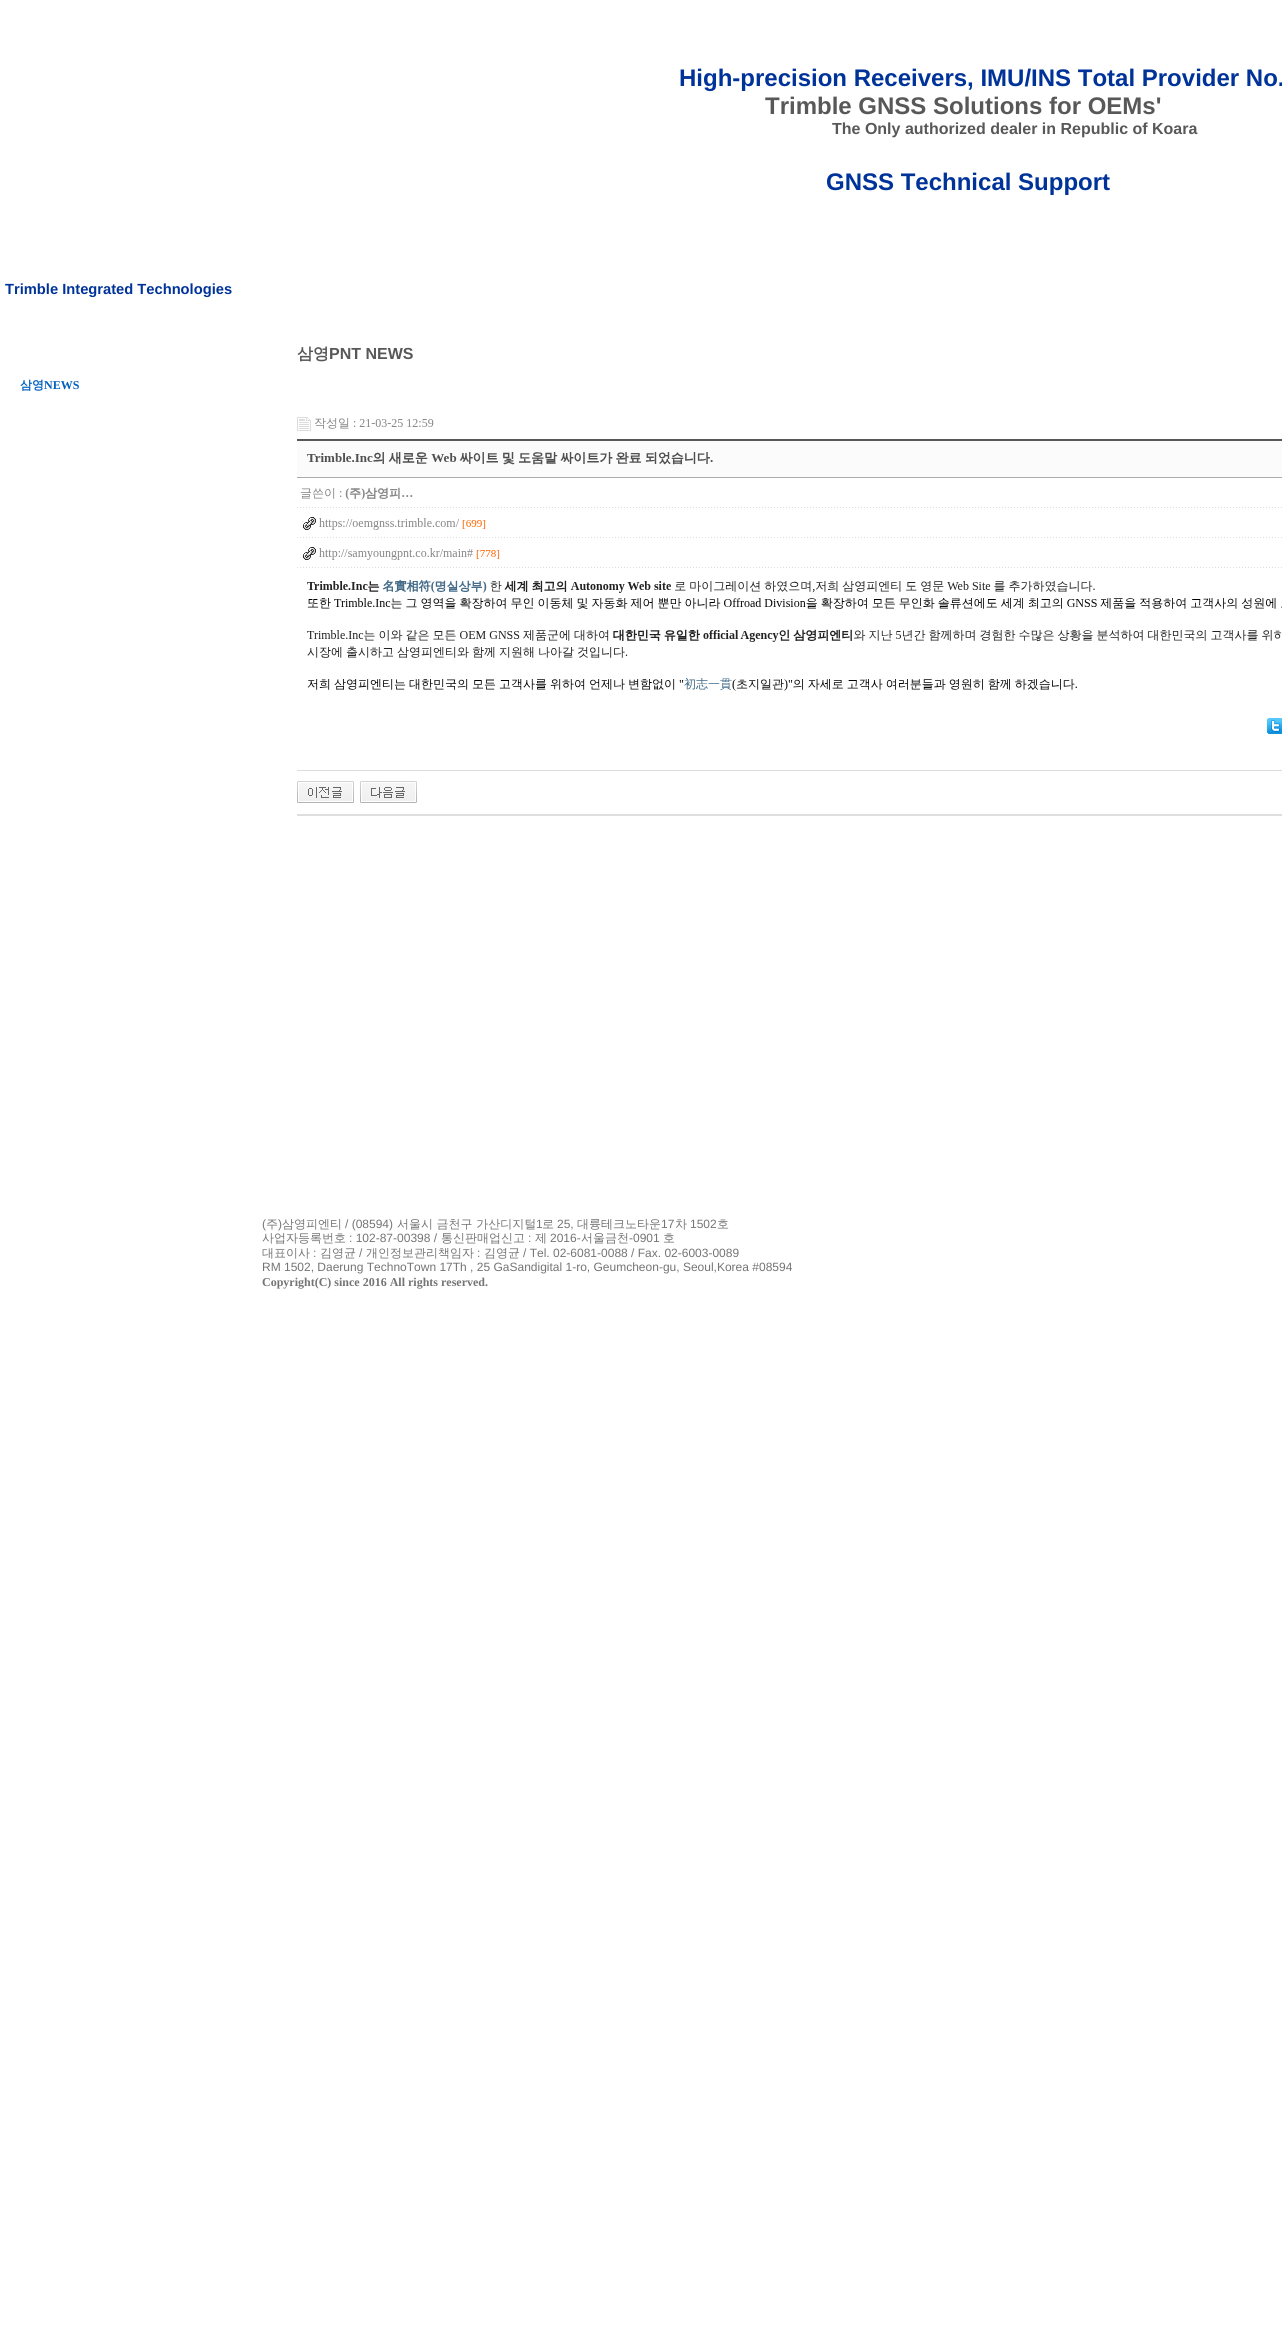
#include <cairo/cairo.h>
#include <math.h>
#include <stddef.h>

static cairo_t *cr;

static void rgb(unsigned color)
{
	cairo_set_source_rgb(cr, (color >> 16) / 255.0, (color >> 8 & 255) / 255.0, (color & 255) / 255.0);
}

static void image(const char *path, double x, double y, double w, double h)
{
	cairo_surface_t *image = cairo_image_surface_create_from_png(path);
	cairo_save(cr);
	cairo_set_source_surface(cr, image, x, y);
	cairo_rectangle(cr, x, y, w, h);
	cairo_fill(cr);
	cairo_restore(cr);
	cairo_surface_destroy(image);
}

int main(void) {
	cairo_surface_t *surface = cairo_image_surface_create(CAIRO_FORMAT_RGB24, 1282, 2336);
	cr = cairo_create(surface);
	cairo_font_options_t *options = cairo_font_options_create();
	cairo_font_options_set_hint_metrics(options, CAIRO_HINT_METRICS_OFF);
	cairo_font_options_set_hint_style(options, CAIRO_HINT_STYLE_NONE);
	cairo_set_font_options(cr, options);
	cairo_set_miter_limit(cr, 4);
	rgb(0xffffff);
	cairo_paint(cr);
	image("img/1.png", 297, 417, 985, 399);
	cairo_select_font_face(cr, "Liberation Sans", CAIRO_FONT_SLANT_NORMAL, CAIRO_FONT_WEIGHT_BOLD);
	cairo_set_font_size(cr, 24);
	rgb(0x003399);
	cairo_move_to(cr, 679, 86);
	cairo_show_text(cr, "High-precision Receivers, IMU/INS Total Provider No.");
	rgb(0x585858);
	cairo_move_to(cr, 765, 114);
	cairo_show_text(cr, "Trimble GNSS Solutions for OEMs'");
	cairo_set_font_size(cr, 16);
	cairo_move_to(cr, 832, 134);
	cairo_show_text(cr, "The Only authorized dealer in Republic of Koara");
	cairo_set_font_size(cr, 24);
	rgb(0x003399);
	cairo_move_to(cr, 826, 190);
	cairo_show_text(cr, "GNSS Technical Support");
	cairo_set_font_size(cr, 14.7);
	cairo_move_to(cr, 5, 294);
	cairo_show_text(cr, "Trimble Integrated Technologies");
	cairo_select_font_face(cr, "WenQuanYi Zen Hei", CAIRO_FONT_SLANT_NORMAL, CAIRO_FONT_WEIGHT_BOLD);
	cairo_set_font_size(cr, 16);
	rgb(0x585858);
	cairo_move_to(cr, 297, 359);
	cairo_show_text(cr, "삼영");
	cairo_select_font_face(cr, "Liberation Sans", CAIRO_FONT_SLANT_NORMAL, CAIRO_FONT_WEIGHT_BOLD);
	cairo_move_to(cr, 329, 359);
	cairo_show_text(cr, "PNT NEWS");
	cairo_select_font_face(cr, "WenQuanYi Zen Hei", CAIRO_FONT_SLANT_NORMAL, CAIRO_FONT_WEIGHT_BOLD);
	cairo_set_font_size(cr, 12);
	rgb(0x005fbf);
	cairo_move_to(cr, 20, 389);
	cairo_show_text(cr, "삼영");
	cairo_select_font_face(cr, "Liberation Serif", CAIRO_FONT_SLANT_NORMAL, CAIRO_FONT_WEIGHT_BOLD);
	cairo_move_to(cr, 44, 389);
	cairo_show_text(cr, "NEWS");
	cairo_select_font_face(cr, "Liberation Sans", CAIRO_FONT_SLANT_NORMAL, CAIRO_FONT_WEIGHT_NORMAL);
	rgb(0x747474);
	cairo_move_to(cr, 262, 1228);
	cairo_show_text(cr, "(");
	cairo_select_font_face(cr, "WenQuanYi Zen Hei Medium", CAIRO_FONT_SLANT_NORMAL, CAIRO_FONT_WEIGHT_NORMAL);
	cairo_move_to(cr, 266, 1228);
	cairo_show_text(cr, "주");
	cairo_select_font_face(cr, "Liberation Sans", CAIRO_FONT_SLANT_NORMAL, CAIRO_FONT_WEIGHT_NORMAL);
	cairo_move_to(cr, 278, 1228);
	cairo_show_text(cr, ")");
	cairo_select_font_face(cr, "WenQuanYi Zen Hei Medium", CAIRO_FONT_SLANT_NORMAL, CAIRO_FONT_WEIGHT_NORMAL);
	cairo_move_to(cr, 282, 1228);
	cairo_show_text(cr, "삼영피엔티");
	cairo_select_font_face(cr, "Liberation Sans", CAIRO_FONT_SLANT_NORMAL, CAIRO_FONT_WEIGHT_NORMAL);
	cairo_move_to(cr, 345, 1228);
	cairo_show_text(cr, "/ (08594)");
	cairo_select_font_face(cr, "WenQuanYi Zen Hei Medium", CAIRO_FONT_SLANT_NORMAL, CAIRO_FONT_WEIGHT_NORMAL);
	cairo_move_to(cr, 397, 1228);
	cairo_show_text(cr, "서울시 금천구 가산디지털");
	cairo_select_font_face(cr, "Liberation Sans", CAIRO_FONT_SLANT_NORMAL, CAIRO_FONT_WEIGHT_NORMAL);
	cairo_move_to(cr, 536, 1228);
	cairo_show_text(cr, "1");
	cairo_select_font_face(cr, "WenQuanYi Zen Hei Medium", CAIRO_FONT_SLANT_NORMAL, CAIRO_FONT_WEIGHT_NORMAL);
	cairo_move_to(cr, 542, 1228);
	cairo_show_text(cr, "로");
	cairo_select_font_face(cr, "Liberation Sans", CAIRO_FONT_SLANT_NORMAL, CAIRO_FONT_WEIGHT_NORMAL);
	cairo_move_to(cr, 557, 1228);
	cairo_show_text(cr, "25,");
	cairo_select_font_face(cr, "WenQuanYi Zen Hei Medium", CAIRO_FONT_SLANT_NORMAL, CAIRO_FONT_WEIGHT_NORMAL);
	cairo_move_to(cr, 577, 1228);
	cairo_show_text(cr, "대륭테크노타운");
	cairo_select_font_face(cr, "Liberation Sans", CAIRO_FONT_SLANT_NORMAL, CAIRO_FONT_WEIGHT_NORMAL);
	cairo_move_to(cr, 661, 1228);
	cairo_show_text(cr, "17");
	cairo_select_font_face(cr, "WenQuanYi Zen Hei Medium", CAIRO_FONT_SLANT_NORMAL, CAIRO_FONT_WEIGHT_NORMAL);
	cairo_move_to(cr, 675, 1228);
	cairo_show_text(cr, "차");
	cairo_select_font_face(cr, "Liberation Sans", CAIRO_FONT_SLANT_NORMAL, CAIRO_FONT_WEIGHT_NORMAL);
	cairo_move_to(cr, 690, 1228);
	cairo_show_text(cr, "1502");
	cairo_select_font_face(cr, "WenQuanYi Zen Hei Medium", CAIRO_FONT_SLANT_NORMAL, CAIRO_FONT_WEIGHT_NORMAL);
	cairo_move_to(cr, 717, 1228);
	cairo_show_text(cr, "호");
	cairo_move_to(cr, 262, 1242);
	cairo_show_text(cr, "사업자등록번호");
	cairo_select_font_face(cr, "Liberation Sans", CAIRO_FONT_SLANT_NORMAL, CAIRO_FONT_WEIGHT_NORMAL);
	cairo_move_to(cr, 349, 1242);
	cairo_show_text(cr, ": 102-87-00398 /");
	cairo_select_font_face(cr, "WenQuanYi Zen Hei Medium", CAIRO_FONT_SLANT_NORMAL, CAIRO_FONT_WEIGHT_NORMAL);
	cairo_move_to(cr, 441, 1242);
	cairo_show_text(cr, "통신판매업신고");
	cairo_select_font_face(cr, "Liberation Sans", CAIRO_FONT_SLANT_NORMAL, CAIRO_FONT_WEIGHT_NORMAL);
	cairo_move_to(cr, 528, 1242);
	cairo_show_text(cr, ":");
	cairo_select_font_face(cr, "WenQuanYi Zen Hei Medium", CAIRO_FONT_SLANT_NORMAL, CAIRO_FONT_WEIGHT_NORMAL);
	cairo_move_to(cr, 535, 1242);
	cairo_show_text(cr, "제");
	cairo_select_font_face(cr, "Liberation Sans", CAIRO_FONT_SLANT_NORMAL, CAIRO_FONT_WEIGHT_NORMAL);
	cairo_move_to(cr, 550, 1242);
	cairo_show_text(cr, "2016-");
	cairo_select_font_face(cr, "WenQuanYi Zen Hei Medium", CAIRO_FONT_SLANT_NORMAL, CAIRO_FONT_WEIGHT_NORMAL);
	cairo_move_to(cr, 581, 1242);
	cairo_show_text(cr, "서울금천");
	cairo_select_font_face(cr, "Liberation Sans", CAIRO_FONT_SLANT_NORMAL, CAIRO_FONT_WEIGHT_NORMAL);
	cairo_move_to(cr, 629, 1242);
	cairo_show_text(cr, "-0901");
	cairo_select_font_face(cr, "WenQuanYi Zen Hei Medium", CAIRO_FONT_SLANT_NORMAL, CAIRO_FONT_WEIGHT_NORMAL);
	cairo_move_to(cr, 663, 1242);
	cairo_show_text(cr, "호");
	cairo_move_to(cr, 262, 1257);
	cairo_show_text(cr, "대표이사");
	cairo_select_font_face(cr, "Liberation Sans", CAIRO_FONT_SLANT_NORMAL, CAIRO_FONT_WEIGHT_NORMAL);
	cairo_move_to(cr, 313, 1257);
	cairo_show_text(cr, ":");
	cairo_select_font_face(cr, "WenQuanYi Zen Hei Medium", CAIRO_FONT_SLANT_NORMAL, CAIRO_FONT_WEIGHT_NORMAL);
	cairo_move_to(cr, 320, 1257);
	cairo_show_text(cr, "김영균");
	cairo_select_font_face(cr, "Liberation Sans", CAIRO_FONT_SLANT_NORMAL, CAIRO_FONT_WEIGHT_NORMAL);
	cairo_move_to(cr, 359, 1257);
	cairo_show_text(cr, "/");
	cairo_select_font_face(cr, "WenQuanYi Zen Hei Medium", CAIRO_FONT_SLANT_NORMAL, CAIRO_FONT_WEIGHT_NORMAL);
	cairo_move_to(cr, 366, 1257);
	cairo_show_text(cr, "개인정보관리책임자");
	cairo_select_font_face(cr, "Liberation Sans", CAIRO_FONT_SLANT_NORMAL, CAIRO_FONT_WEIGHT_NORMAL);
	cairo_move_to(cr, 477, 1257);
	cairo_show_text(cr, ":");
	cairo_select_font_face(cr, "WenQuanYi Zen Hei Medium", CAIRO_FONT_SLANT_NORMAL, CAIRO_FONT_WEIGHT_NORMAL);
	cairo_move_to(cr, 484, 1257);
	cairo_show_text(cr, "김영균");
	cairo_select_font_face(cr, "Liberation Sans", CAIRO_FONT_SLANT_NORMAL, CAIRO_FONT_WEIGHT_NORMAL);
	cairo_move_to(cr, 523, 1257);
	cairo_show_text(cr, "/ Tel. 02-6081-0088 / Fax. 02-6003-0089");
	cairo_move_to(cr, 262, 1271);
	cairo_show_text(cr, "RM 1502, Daerung TechnoTown 17Th , 25 GaSandigital 1-ro, Geumcheon-gu, Seoul,Korea #08594");
	cairo_select_font_face(cr, "Liberation Serif", CAIRO_FONT_SLANT_NORMAL, CAIRO_FONT_WEIGHT_BOLD);
	cairo_move_to(cr, 262, 1286);
	cairo_show_text(cr, "Copyright(C) since 2016 All rights reserved.");
	cairo_surface_write_to_png(surface, "page.png");
	cairo_font_options_destroy(options);
	cairo_destroy(cr);
	cairo_surface_destroy(surface);
	return 0;
}
